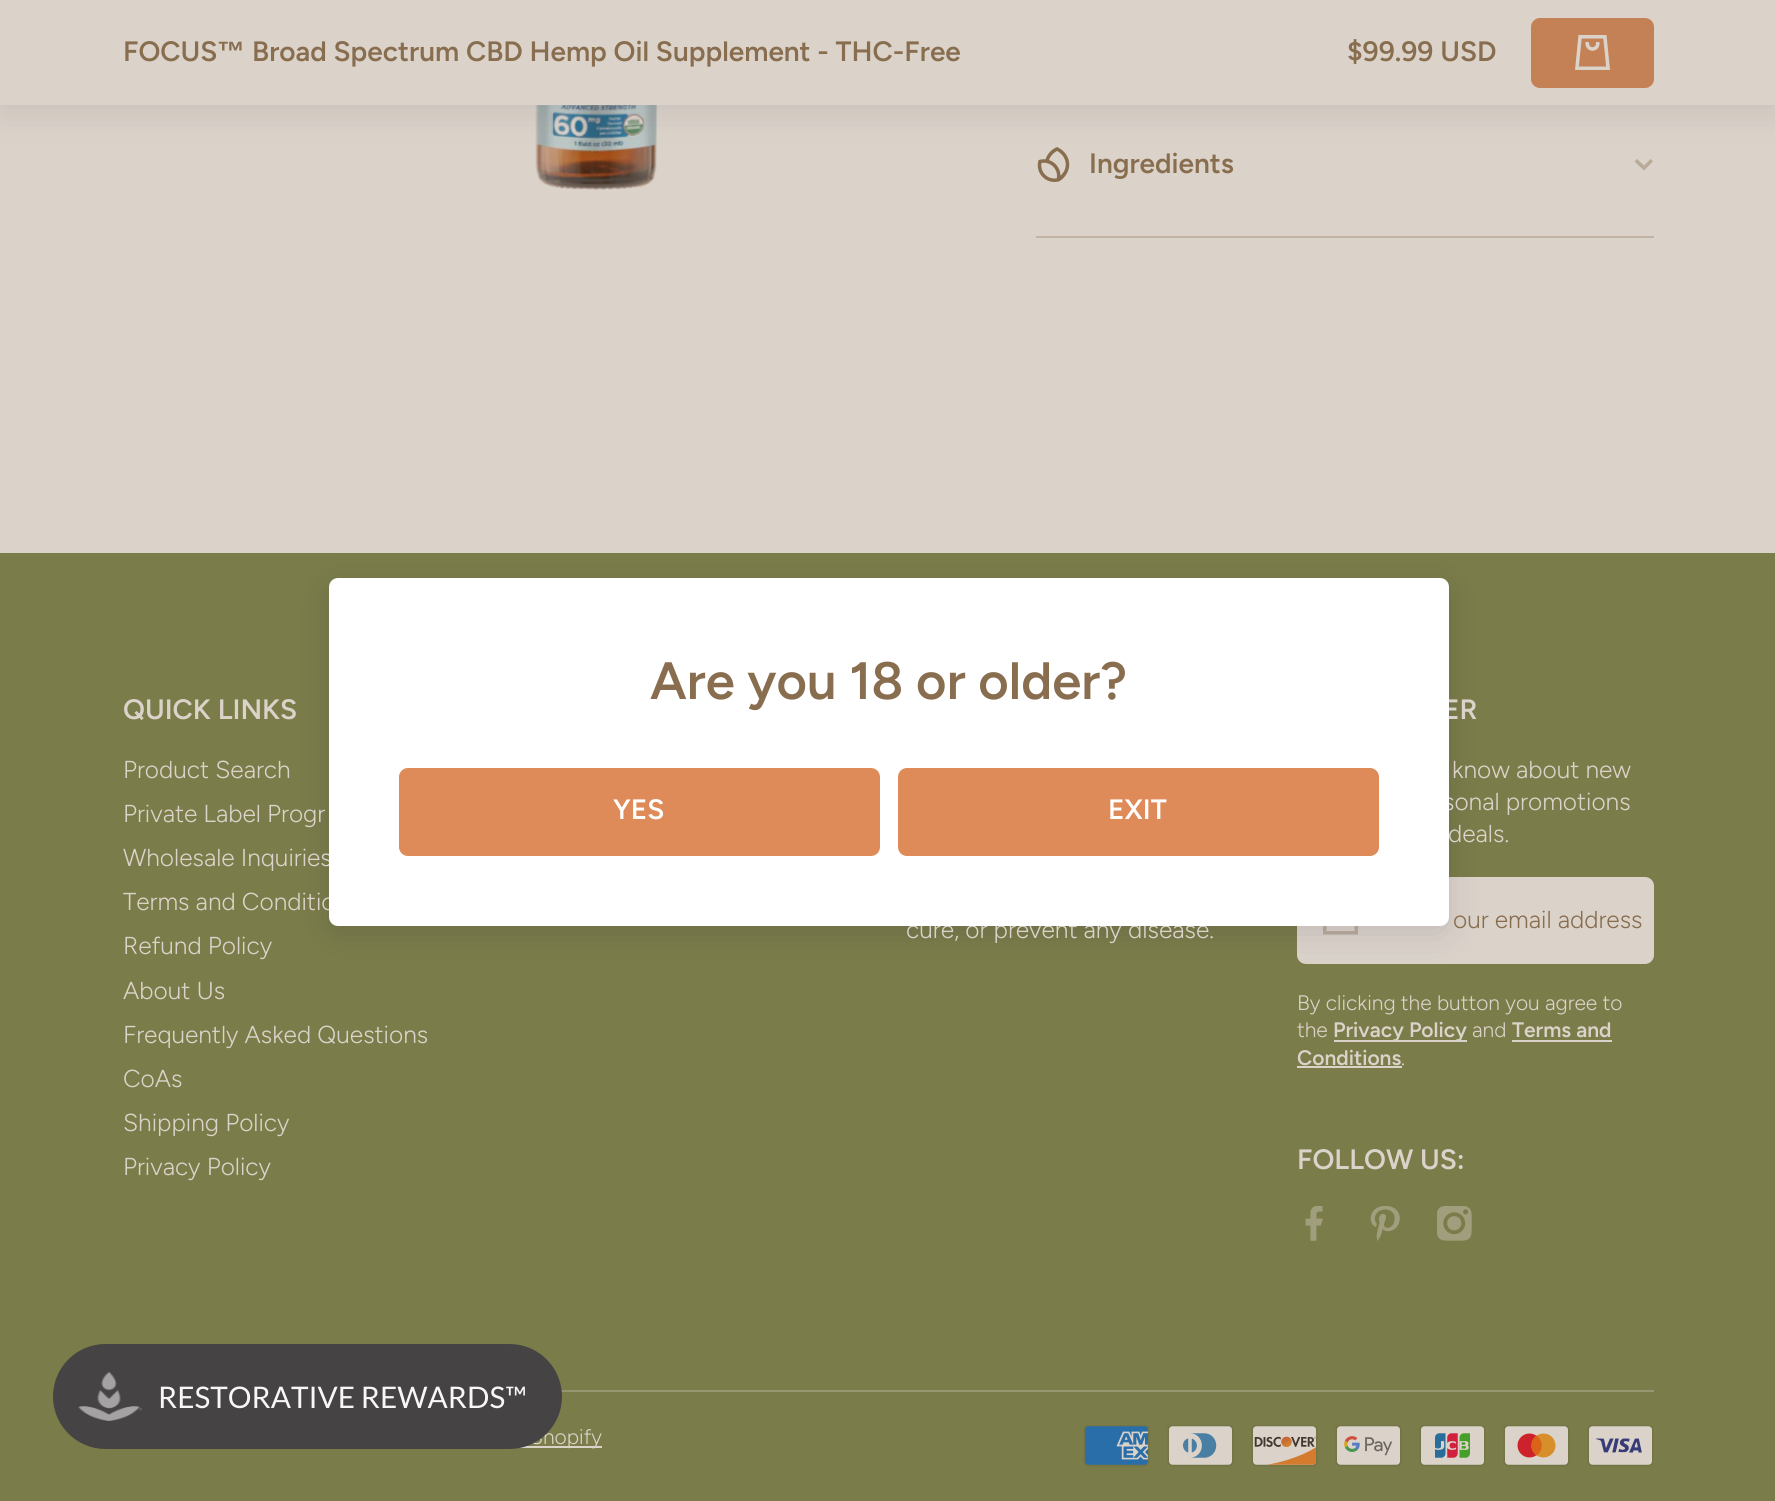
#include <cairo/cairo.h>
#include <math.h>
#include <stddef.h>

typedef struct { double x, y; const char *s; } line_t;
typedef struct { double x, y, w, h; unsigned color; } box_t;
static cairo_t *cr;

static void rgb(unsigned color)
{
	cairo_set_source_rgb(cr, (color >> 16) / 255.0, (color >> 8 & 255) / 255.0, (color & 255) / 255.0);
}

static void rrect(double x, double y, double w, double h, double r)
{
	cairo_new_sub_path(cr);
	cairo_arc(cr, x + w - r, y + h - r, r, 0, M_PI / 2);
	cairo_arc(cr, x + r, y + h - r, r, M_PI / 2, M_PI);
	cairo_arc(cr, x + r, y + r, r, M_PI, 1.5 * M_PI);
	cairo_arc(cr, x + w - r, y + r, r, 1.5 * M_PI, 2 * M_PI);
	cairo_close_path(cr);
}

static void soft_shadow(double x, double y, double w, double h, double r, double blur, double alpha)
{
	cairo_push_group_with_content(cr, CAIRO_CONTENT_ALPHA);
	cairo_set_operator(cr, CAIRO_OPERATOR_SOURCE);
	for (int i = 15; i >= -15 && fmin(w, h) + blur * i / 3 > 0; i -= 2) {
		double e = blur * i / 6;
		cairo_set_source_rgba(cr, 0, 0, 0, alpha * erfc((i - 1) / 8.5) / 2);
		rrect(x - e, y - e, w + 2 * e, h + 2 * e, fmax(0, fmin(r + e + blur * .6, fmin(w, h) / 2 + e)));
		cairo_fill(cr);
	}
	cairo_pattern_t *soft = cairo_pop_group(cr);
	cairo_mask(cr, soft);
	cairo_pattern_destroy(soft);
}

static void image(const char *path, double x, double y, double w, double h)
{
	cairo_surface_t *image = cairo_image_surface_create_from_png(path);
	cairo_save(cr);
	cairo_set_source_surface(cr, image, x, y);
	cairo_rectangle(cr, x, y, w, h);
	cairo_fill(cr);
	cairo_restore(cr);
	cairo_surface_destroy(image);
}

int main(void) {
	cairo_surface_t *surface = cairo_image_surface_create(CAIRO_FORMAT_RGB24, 1775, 1501);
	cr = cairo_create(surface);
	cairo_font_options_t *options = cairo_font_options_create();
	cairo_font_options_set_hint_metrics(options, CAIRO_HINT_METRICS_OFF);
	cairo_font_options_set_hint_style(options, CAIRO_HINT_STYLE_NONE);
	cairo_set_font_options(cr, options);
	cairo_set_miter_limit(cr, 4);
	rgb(0xdbd3ca);
	cairo_paint(cr);
	image("img/2.png", 535, 105, 123, 85);
	image("img/3.png", 1037, 147, 33, 35);
	rgb(0xbaab99);
	cairo_set_fill_rule(cr, CAIRO_FILL_RULE_EVEN_ODD);
	cairo_new_path(cr);
	cairo_move_to(cr, 1644, 165.5);
	cairo_line_to(cr, 1637, 159);
	cairo_line_to(cr, 1634.5, 161.5);
	cairo_line_to(cr, 1644, 170.5);
	cairo_line_to(cr, 1653, 161.5);
	cairo_line_to(cr, 1650.5, 159);
	cairo_close_path(cr);
	cairo_fill(cr);
	rgb(0x382e48);
	soft_shadow(0, 7, 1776, 105, 0, 17.5, 0.13);
	rgb(0xdbd3ca);
	cairo_rectangle(cr, 0, 0, 1775, 105);
	cairo_fill(cr);
	rgb(0xc58156);
	rrect(1531, 18, 123, 70, 9);
	cairo_fill(cr);
	image("img/1.png", 1575, 35, 35, 35);
	rgb(0xc2b4a5);
	cairo_rectangle(cr, 1036, 236, 618, 2);
	cairo_fill(cr);
	rgb(0x7a7c49);
	cairo_rectangle(cr, 0, 553, 1775, 948);
	cairo_fill(cr);
	rgb(0xdbd3ca);
	rrect(1297, 877, 357, 87, 9);
	cairo_fill(cr);
	rgb(0xbaab99);
	cairo_new_path(cr);
	cairo_move_to(cr, 1351, 910);
	cairo_line_to(cr, 1330, 910);
	cairo_line_to(cr, 1340.5, 918.5);
	cairo_close_path(cr);
	cairo_move_to(cr, 1326.5, 912);
	cairo_line_to(cr, 1326.5, 931);
	cairo_line_to(cr, 1354.5, 931);
	cairo_line_to(cr, 1354.5, 912);
	cairo_line_to(cr, 1340.5, 922.5);
	cairo_close_path(cr);
	cairo_move_to(cr, 1323, 934.5);
	cairo_line_to(cr, 1323, 906.5);
	cairo_line_to(cr, 1358, 906.5);
	cairo_line_to(cr, 1358, 934.5);
	cairo_close_path(cr);
	cairo_fill(cr);
	rgb(0x161345);
	soft_shadow(329, 585, 1120, 348, 9, 17.5, 0.13);
	{
		static const box_t items[] = {
			{1334, 1040, 133, 2, 0xdbd3ca},
			{1512, 1040, 100, 2, 0xdbd3ca},
			{1297, 1066, 105, 2, 0xdbd3ca},
		};
		for (size_t i = 0; i < sizeof items / sizeof *items; i++) {
			rgb(items[i].color);
			cairo_rectangle(cr, items[i].x, items[i].y, items[i].w, items[i].h);
			cairo_fill(cr);
		}
	}
	image("img/4.png", 1305, 1206, 18, 35);
	image("img/5.png", 1370, 1206, 30, 35);
	image("img/6.png", 1437, 1206, 35, 35);
	rgb(0x979670);
	cairo_rectangle(cr, 561, 1390, 1093, 2);
	cairo_fill(cr);
	rgb(0xdbd3ca);
	cairo_rectangle(cr, 519, 1446, 83, 2);
	cairo_fill(cr);
	image("img/7.png", 1083, 1425, 67, 42);
	image("img/8.png", 1167, 1425, 67, 42);
	image("img/9.png", 1251, 1425, 67, 42);
	image("img/10.png", 1335, 1425, 67, 42);
	image("img/11.png", 1419, 1425, 67, 42);
	image("img/12.png", 1503, 1425, 67, 42);
	image("img/13.png", 1587, 1425, 67, 42);
	cairo_select_font_face(cr, "Figtree SemiBold", CAIRO_FONT_SLANT_NORMAL, CAIRO_FONT_WEIGHT_NORMAL);
	cairo_set_font_size(cr, 28);
	rgb(0x886d4f);
	cairo_move_to(cr, 123, 61);
	cairo_show_text(cr, "FOCUS");
	cairo_select_font_face(cr, "Liberation Sans", CAIRO_FONT_SLANT_NORMAL, CAIRO_FONT_WEIGHT_BOLD);
	cairo_move_to(cr, 217, 61);
	cairo_show_text(cr, "™");
	cairo_select_font_face(cr, "Figtree SemiBold", CAIRO_FONT_SLANT_NORMAL, CAIRO_FONT_WEIGHT_NORMAL);
	{
		static const line_t items[] = {
			{252, 61, "Broad Spectrum CBD Hemp Oil Supplement - THC-Free"},
			{1347, 61, "$99.99 USD"},
			{1089, 173, "Ingredients"},
		};
		for (size_t i = 0; i < sizeof items / sizeof *items; i++) {
			cairo_move_to(cr, items[i].x, items[i].y);
			cairo_show_text(cr, items[i].s);
		}
	}
	rgb(0xdbd3ca);
	cairo_move_to(cr, 123, 719);
	cairo_show_text(cr, "QUICK LINKS");
	cairo_select_font_face(cr, "Figtree Light", CAIRO_FONT_SLANT_NORMAL, CAIRO_FONT_WEIGHT_NORMAL);
	cairo_set_font_size(cr, 24.5);
	{
		static const line_t items[] = {
			{123, 778, "Product Search"},
			{123, 822, "Private Label Progr"},
			{123, 866, "Wholesale Inquiries"},
			{123, 910, "Terms and Conditio"},
			{123, 954, "Refund Policy"},
			{123, 999, "About Us"},
			{123, 1043, "Frequently Asked Questions"},
			{123, 1087, "CoAs"},
			{123, 1131, "Shipping Policy"},
			{123, 1175, "Privacy Policy"},
			{906, 938, "cure, or prevent any disease."},
		};
		for (size_t i = 0; i < sizeof items / sizeof *items; i++) {
			cairo_move_to(cr, items[i].x, items[i].y);
			cairo_show_text(cr, items[i].s);
		}
	}
	cairo_select_font_face(cr, "Figtree SemiBold", CAIRO_FONT_SLANT_NORMAL, CAIRO_FONT_WEIGHT_NORMAL);
	cairo_set_font_size(cr, 28);
	cairo_move_to(cr, 1443, 719);
	cairo_show_text(cr, "ER");
	cairo_select_font_face(cr, "Figtree Light", CAIRO_FONT_SLANT_NORMAL, CAIRO_FONT_WEIGHT_NORMAL);
	cairo_set_font_size(cr, 24.5);
	cairo_move_to(cr, 1452, 778);
	cairo_show_text(cr, "know about new");
	cairo_move_to(cr, 1443, 810);
	cairo_show_text(cr, "sonal promotions");
	rgb(0xffffff);
	rrect(329, 578, 1120, 348, 9);
	cairo_fill(cr);
	rgb(0xdf8a59);
	rrect(898, 768, 481, 88, 9);
	cairo_fill(cr);
	cairo_select_font_face(cr, "Figtree SemiBold", CAIRO_FONT_SLANT_NORMAL, CAIRO_FONT_WEIGHT_NORMAL);
	cairo_set_font_size(cr, 28);
	rgb(0xffffff);
	cairo_move_to(cr, 1108, 819);
	cairo_show_text(cr, "EXIT");
	rgb(0xdf8a59);
	rrect(399, 768, 481, 88, 9);
	cairo_fill(cr);
	rgb(0xffffff);
	cairo_move_to(cr, 613, 819);
	cairo_show_text(cr, "YES");
	cairo_set_font_size(cr, 52.5);
	rgb(0x886d4f);
	cairo_move_to(cr, 650, 699);
	cairo_show_text(cr, "Are you 18 or older?");
	cairo_select_font_face(cr, "Figtree Light", CAIRO_FONT_SLANT_NORMAL, CAIRO_FONT_WEIGHT_NORMAL);
	cairo_set_font_size(cr, 24.5);
	rgb(0xdbd3ca);
	cairo_move_to(cr, 1448, 842);
	cairo_show_text(cr, "deals.");
	rgb(0x886d4f);
	cairo_move_to(cr, 1453, 928);
	cairo_show_text(cr, "our email address");
	cairo_set_font_size(cr, 21);
	rgb(0xdbd3ca);
	cairo_move_to(cr, 1297, 1010);
	cairo_show_text(cr, "By clicking the button you agree to");
	cairo_move_to(cr, 1297, 1037);
	cairo_show_text(cr, "the");
	cairo_select_font_face(cr, "Figtree SemiBold", CAIRO_FONT_SLANT_NORMAL, CAIRO_FONT_WEIGHT_NORMAL);
	cairo_move_to(cr, 1333, 1037);
	cairo_show_text(cr, "Privacy Policy");
	cairo_select_font_face(cr, "Figtree Light", CAIRO_FONT_SLANT_NORMAL, CAIRO_FONT_WEIGHT_NORMAL);
	cairo_move_to(cr, 1472, 1037);
	cairo_show_text(cr, "and");
	cairo_select_font_face(cr, "Figtree SemiBold", CAIRO_FONT_SLANT_NORMAL, CAIRO_FONT_WEIGHT_NORMAL);
	cairo_move_to(cr, 1512, 1037);
	cairo_show_text(cr, "Terms and");
	cairo_move_to(cr, 1297, 1065);
	cairo_show_text(cr, "Conditions");
	cairo_select_font_face(cr, "Figtree Light", CAIRO_FONT_SLANT_NORMAL, CAIRO_FONT_WEIGHT_NORMAL);
	cairo_move_to(cr, 1401, 1065);
	cairo_show_text(cr, ".");
	cairo_select_font_face(cr, "Figtree SemiBold", CAIRO_FONT_SLANT_NORMAL, CAIRO_FONT_WEIGHT_NORMAL);
	cairo_set_font_size(cr, 28);
	cairo_move_to(cr, 1297, 1169);
	cairo_show_text(cr, "FOLLOW US:");
	cairo_select_font_face(cr, "Figtree Light", CAIRO_FONT_SLANT_NORMAL, CAIRO_FONT_WEIGHT_NORMAL);
	cairo_set_font_size(cr, 21);
	cairo_move_to(cr, 530, 1444);
	cairo_show_text(cr, "Shopify");
	rgb(0x464344);
	rrect(53, 1344, 509, 105, 52.5);
	cairo_fill(cr);
	image("img/14.png", 78, 1372, 64, 49);
	cairo_select_font_face(cr, "Lato", CAIRO_FONT_SLANT_NORMAL, CAIRO_FONT_WEIGHT_NORMAL);
	cairo_set_font_size(cr, 29.75);
	rgb(0xf8f6f6);
	cairo_move_to(cr, 158, 1408);
	cairo_show_text(cr, "RESTORATIVE REWARDS™");
	cairo_surface_write_to_png(surface, "page.png");
	cairo_font_options_destroy(options);
	cairo_destroy(cr);
	cairo_surface_destroy(surface);
	return 0;
}
